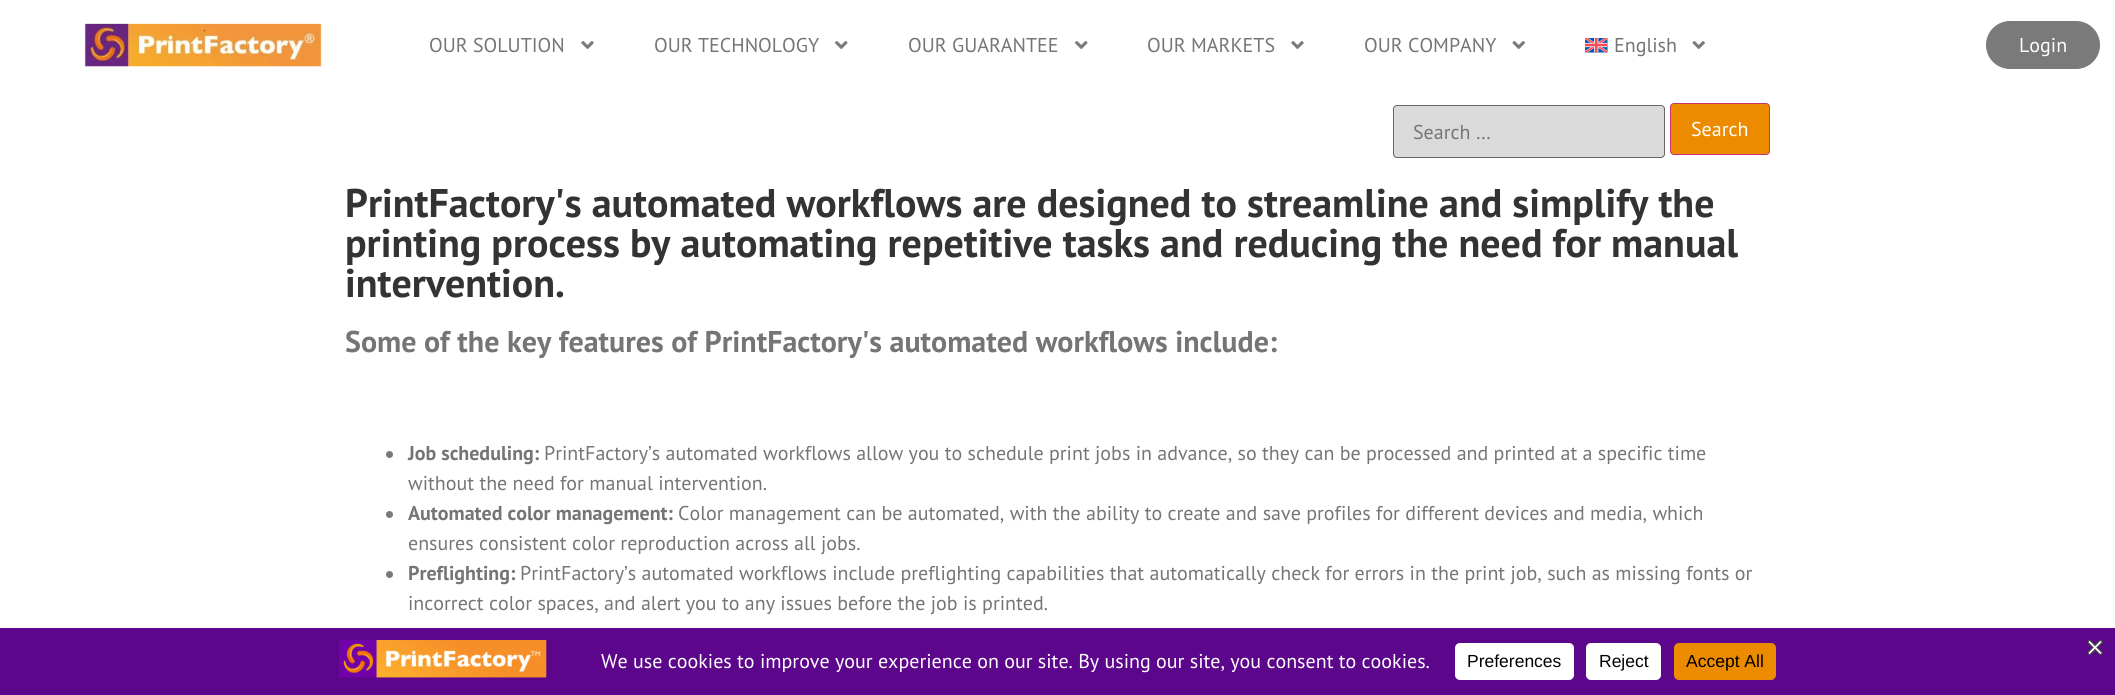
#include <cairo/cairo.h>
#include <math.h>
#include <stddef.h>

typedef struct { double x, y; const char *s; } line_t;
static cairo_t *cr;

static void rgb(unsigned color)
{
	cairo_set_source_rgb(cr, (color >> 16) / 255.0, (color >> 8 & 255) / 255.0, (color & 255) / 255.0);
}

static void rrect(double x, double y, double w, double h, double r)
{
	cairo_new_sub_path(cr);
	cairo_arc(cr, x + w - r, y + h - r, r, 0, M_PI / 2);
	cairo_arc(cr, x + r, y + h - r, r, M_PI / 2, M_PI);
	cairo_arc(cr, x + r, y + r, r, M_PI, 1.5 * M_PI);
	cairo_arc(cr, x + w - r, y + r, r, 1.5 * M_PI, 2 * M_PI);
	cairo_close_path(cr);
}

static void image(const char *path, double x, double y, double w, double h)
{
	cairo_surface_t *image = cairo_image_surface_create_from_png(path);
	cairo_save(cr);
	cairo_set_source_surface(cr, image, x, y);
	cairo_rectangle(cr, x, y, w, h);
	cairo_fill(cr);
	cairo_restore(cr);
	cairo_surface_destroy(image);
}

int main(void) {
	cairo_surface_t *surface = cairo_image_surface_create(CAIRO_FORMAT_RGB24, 2115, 695);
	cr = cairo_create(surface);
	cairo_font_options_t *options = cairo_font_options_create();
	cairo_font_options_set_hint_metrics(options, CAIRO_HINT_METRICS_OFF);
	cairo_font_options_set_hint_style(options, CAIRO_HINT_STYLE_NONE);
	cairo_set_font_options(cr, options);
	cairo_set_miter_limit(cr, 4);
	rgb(0xffffff);
	cairo_paint(cr);
	image("img/1.png", 84, 23, 238, 44);
	image("img/2.png", 581, 41, 13, 8);
	image("img/3.png", 835, 41, 13, 8);
	image("img/3.png", 1075, 41, 13, 8);
	image("img/2.png", 1291, 41, 13, 8);
	image("img/4.png", 1512, 41, 13, 8);
	image("img/5.png", 1585, 38, 23, 15);
	image("img/4.png", 1692, 41, 13, 8);
	rgb(0x7a7a7a);
	rrect(1986.5, 21.5, 113, 47, 23.5);
	cairo_fill_preserve(cr);
	cairo_set_line_width(cr, 1);
	cairo_stroke(cr);
	rgb(0xdadada);
	rrect(1393.5, 105.5, 271, 52, 3.5);
	cairo_fill_preserve(cr);
	rgb(0x666666);
	cairo_stroke(cr);
	rgb(0xed8b00);
	rrect(1670.5, 103.5, 99, 51, 3.5);
	cairo_fill_preserve(cr);
	rgb(0xcc3366);
	cairo_stroke(cr);
	rgb(0x7a7a7a);
	cairo_arc(cr, 389.5, 454.5, 3.5, 0, 2 * M_PI);
	cairo_fill(cr);
	cairo_arc(cr, 389.5, 514.5, 3.5, 0, 2 * M_PI);
	cairo_fill(cr);
	cairo_arc(cr, 389.5, 574.5, 3.5, 0, 2 * M_PI);
	cairo_fill(cr);
	rgb(0x5c068c);
	cairo_rectangle(cr, 0, 628, 2115, 67);
	cairo_fill(cr);
	image("img/6.png", 339, 640, 208, 38);
	image("img/7.png", 2088, 640, 15, 15);
	rgb(0xffffff);
	rrect(1455, 643, 119, 37, 5);
	cairo_fill(cr);
	rrect(1586, 643, 75, 37, 5);
	cairo_fill(cr);
	rgb(0xed8b00);
	rrect(1674, 643, 102, 37, 5);
	cairo_fill(cr);
	cairo_select_font_face(cr, "PT Sans", CAIRO_FONT_SLANT_NORMAL, CAIRO_FONT_WEIGHT_NORMAL);
	cairo_set_font_size(cr, 20);
	rgb(0x757575);
	{
		static const line_t items[] = {
			{429, 52, "OUR SOLUTION"},
			{654, 52, "OUR TECHNOLOGY"},
			{908, 52, "OUR GUARANTEE"},
			{1147, 52, "OUR MARKETS"},
			{1364, 52, "OUR COMPANY"},
			{1614, 52, "English"},
		};
		for (size_t i = 0; i < sizeof items / sizeof *items; i++) {
			cairo_move_to(cr, items[i].x, items[i].y);
			cairo_show_text(cr, items[i].s);
		}
	}
	rgb(0xffffff);
	cairo_move_to(cr, 2019, 52);
	cairo_show_text(cr, "Login");
	rgb(0x757575);
	cairo_move_to(cr, 1413, 139);
	cairo_show_text(cr, "Search …");
	rgb(0xffffff);
	cairo_move_to(cr, 1691, 136);
	cairo_show_text(cr, "Search");
	cairo_select_font_face(cr, "PT Sans", CAIRO_FONT_SLANT_NORMAL, CAIRO_FONT_WEIGHT_BOLD);
	cairo_set_font_size(cr, 40);
	rgb(0x333333);
	{
		static const line_t items[] = {
			{345, 217, "PrintFactory's automated workflows are designed to streamline and simplify the"},
			{345, 257, "printing process by automating repetitive tasks and reducing the need for manual"},
			{345, 297, "intervention."},
		};
		for (size_t i = 0; i < sizeof items / sizeof *items; i++) {
			cairo_move_to(cr, items[i].x, items[i].y);
			cairo_show_text(cr, items[i].s);
		}
	}
	cairo_set_font_size(cr, 30);
	rgb(0x757575);
	cairo_move_to(cr, 345, 352);
	cairo_show_text(cr, "Some of the key features of PrintFactory's automated workflows include:");
	cairo_set_font_size(cr, 20);
	cairo_move_to(cr, 408, 460);
	cairo_show_text(cr, "Job scheduling:");
	cairo_select_font_face(cr, "PT Sans", CAIRO_FONT_SLANT_NORMAL, CAIRO_FONT_WEIGHT_NORMAL);
	cairo_move_to(cr, 544, 460);
	cairo_show_text(cr, "PrintFactory’s automated workflows allow you to schedule print jobs in advance, so they can be processed and printed at a specific time");
	cairo_move_to(cr, 408, 490);
	cairo_show_text(cr, "without the need for manual intervention.");
	cairo_select_font_face(cr, "PT Sans", CAIRO_FONT_SLANT_NORMAL, CAIRO_FONT_WEIGHT_BOLD);
	cairo_move_to(cr, 408, 520);
	cairo_show_text(cr, "Automated color management:");
	cairo_select_font_face(cr, "PT Sans", CAIRO_FONT_SLANT_NORMAL, CAIRO_FONT_WEIGHT_NORMAL);
	cairo_move_to(cr, 678, 520);
	cairo_show_text(cr, "Color management can be automated, with the ability to create and save profiles for different devices and media, which");
	cairo_move_to(cr, 408, 550);
	cairo_show_text(cr, "ensures consistent color reproduction across all jobs.");
	cairo_select_font_face(cr, "PT Sans", CAIRO_FONT_SLANT_NORMAL, CAIRO_FONT_WEIGHT_BOLD);
	cairo_move_to(cr, 408, 580);
	cairo_show_text(cr, "Preflighting:");
	cairo_select_font_face(cr, "PT Sans", CAIRO_FONT_SLANT_NORMAL, CAIRO_FONT_WEIGHT_NORMAL);
	cairo_move_to(cr, 520, 580);
	cairo_show_text(cr, "PrintFactory’s automated workflows include preflighting capabilities that automatically check for errors in the print job, such as missing fonts or");
	cairo_move_to(cr, 408, 610);
	cairo_show_text(cr, "incorrect color spaces, and alert you to any issues before the job is printed.");
	rgb(0xffffff);
	cairo_move_to(cr, 601, 668);
	cairo_show_text(cr, "We use cookies to improve your experience on our site. By using our site, you consent to cookies.");
	cairo_select_font_face(cr, "Liberation Sans", CAIRO_FONT_SLANT_NORMAL, CAIRO_FONT_WEIGHT_NORMAL);
	cairo_set_font_size(cr, 17.5);
	rgb(0x000000);
	{
		static const line_t items[] = {
			{1467, 667, "Preferences"},
			{1599, 667, "Reject"},
			{1686, 667, "Accept All"},
		};
		for (size_t i = 0; i < sizeof items / sizeof *items; i++) {
			cairo_move_to(cr, items[i].x, items[i].y);
			cairo_show_text(cr, items[i].s);
		}
	}
	cairo_surface_write_to_png(surface, "page.png");
	cairo_font_options_destroy(options);
	cairo_destroy(cr);
	cairo_surface_destroy(surface);
	return 0;
}
